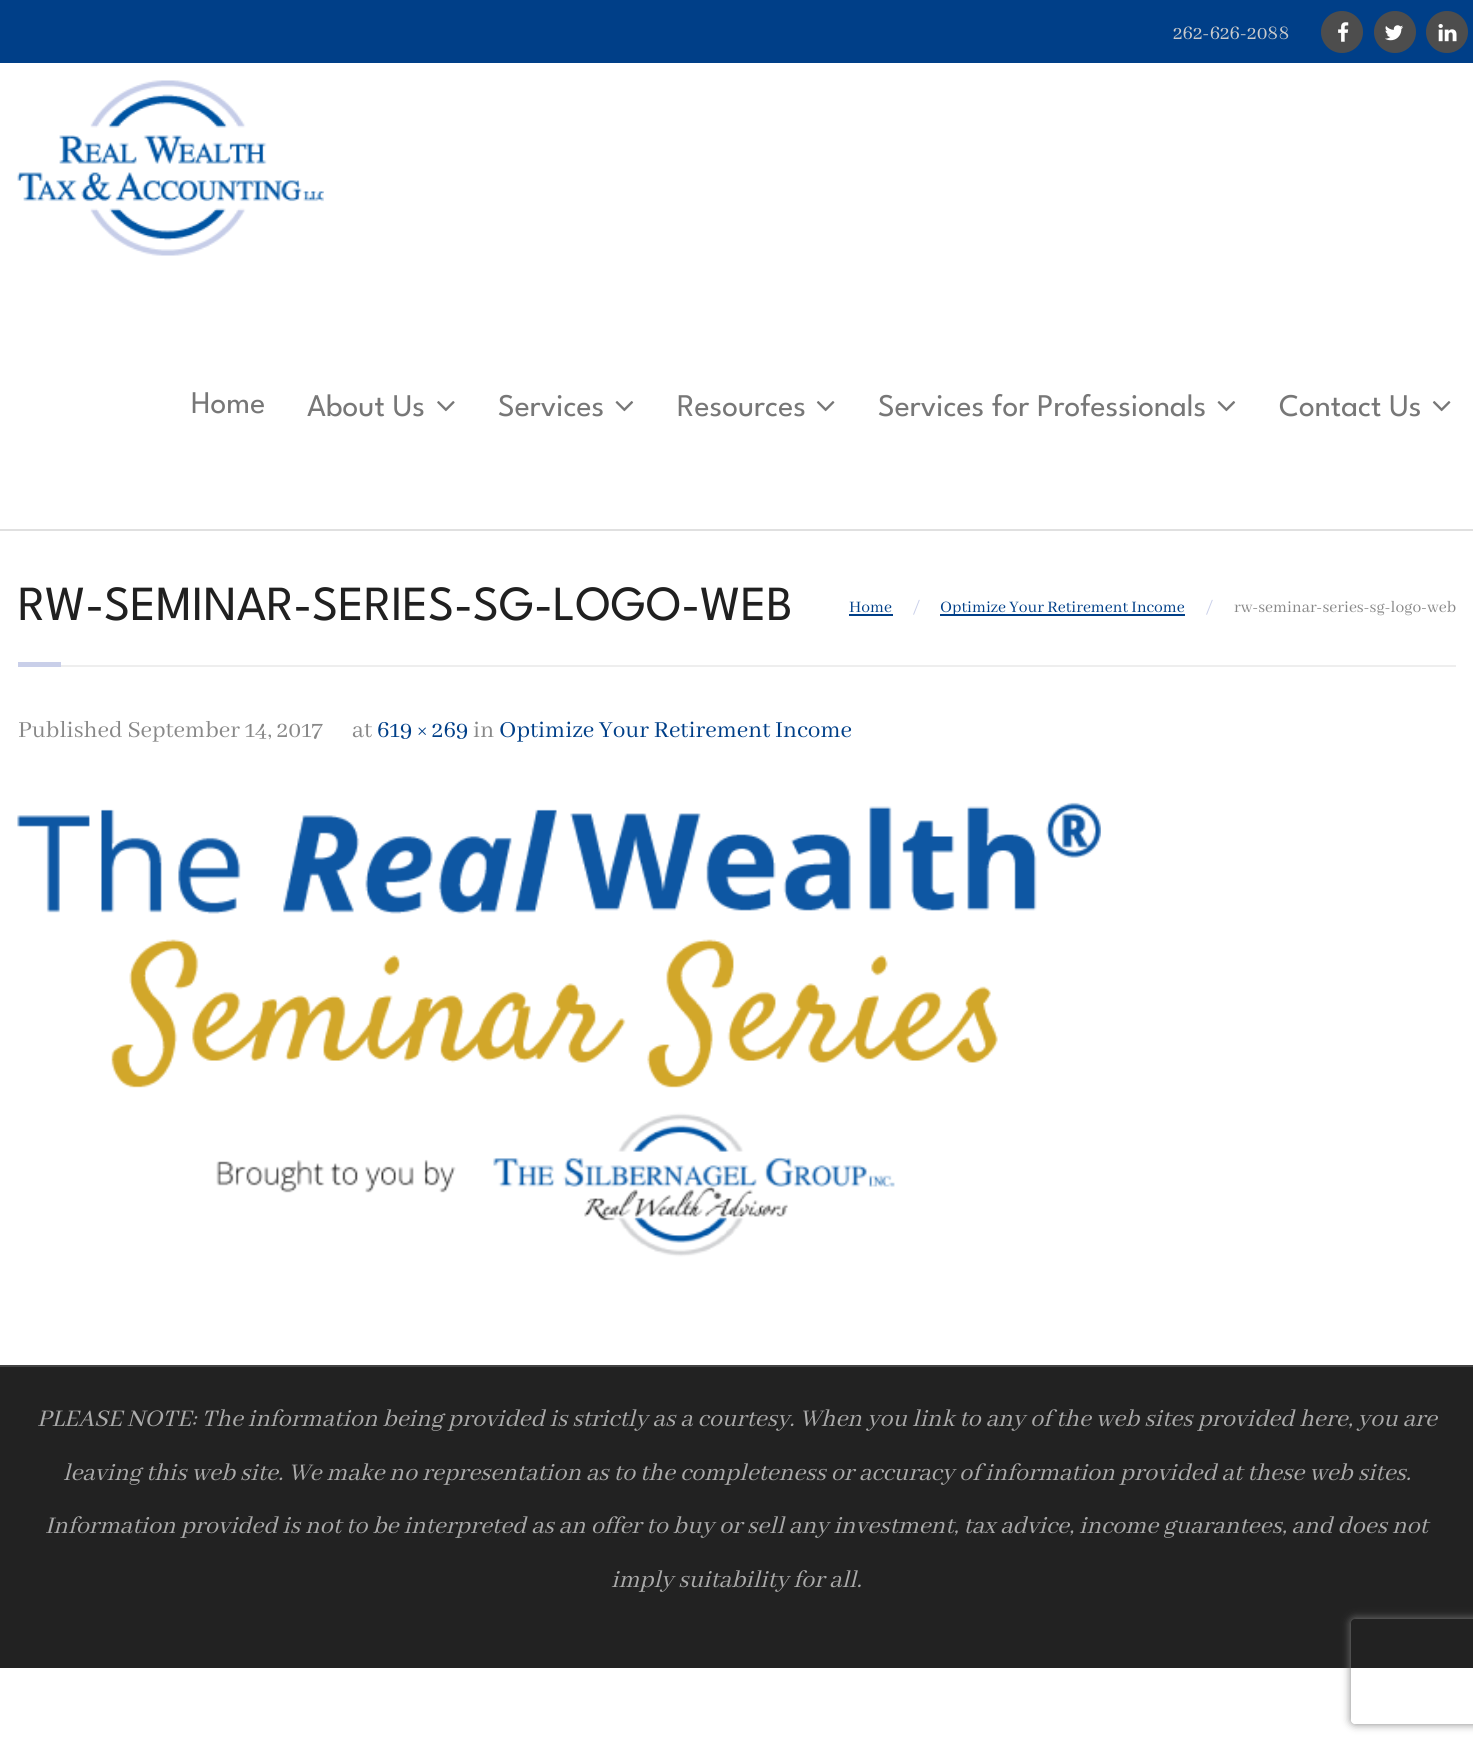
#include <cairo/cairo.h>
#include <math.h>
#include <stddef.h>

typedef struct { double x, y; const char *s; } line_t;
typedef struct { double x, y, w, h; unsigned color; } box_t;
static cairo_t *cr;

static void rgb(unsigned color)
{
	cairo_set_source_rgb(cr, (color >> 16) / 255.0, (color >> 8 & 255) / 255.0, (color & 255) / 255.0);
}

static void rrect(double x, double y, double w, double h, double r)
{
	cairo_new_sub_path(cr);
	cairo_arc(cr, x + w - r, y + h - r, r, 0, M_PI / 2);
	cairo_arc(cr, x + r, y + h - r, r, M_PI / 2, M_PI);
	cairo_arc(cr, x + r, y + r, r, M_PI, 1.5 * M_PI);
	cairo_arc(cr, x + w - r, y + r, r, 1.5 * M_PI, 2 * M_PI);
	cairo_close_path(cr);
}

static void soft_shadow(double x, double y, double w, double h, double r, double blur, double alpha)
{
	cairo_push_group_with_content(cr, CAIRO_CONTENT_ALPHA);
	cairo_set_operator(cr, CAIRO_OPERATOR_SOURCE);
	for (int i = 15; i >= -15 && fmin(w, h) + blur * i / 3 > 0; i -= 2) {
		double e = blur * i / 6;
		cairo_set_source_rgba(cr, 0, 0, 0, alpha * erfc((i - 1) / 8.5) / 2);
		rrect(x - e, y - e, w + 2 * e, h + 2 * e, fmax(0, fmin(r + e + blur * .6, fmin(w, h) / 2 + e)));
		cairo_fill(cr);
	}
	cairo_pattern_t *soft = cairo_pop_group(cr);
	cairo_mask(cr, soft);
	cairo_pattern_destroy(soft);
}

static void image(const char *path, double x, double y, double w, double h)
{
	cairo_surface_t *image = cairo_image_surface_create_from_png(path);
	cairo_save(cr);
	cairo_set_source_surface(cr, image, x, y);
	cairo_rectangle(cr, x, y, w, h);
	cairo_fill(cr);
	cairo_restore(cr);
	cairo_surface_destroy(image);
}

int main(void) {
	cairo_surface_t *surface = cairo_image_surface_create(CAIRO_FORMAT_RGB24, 1473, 1748);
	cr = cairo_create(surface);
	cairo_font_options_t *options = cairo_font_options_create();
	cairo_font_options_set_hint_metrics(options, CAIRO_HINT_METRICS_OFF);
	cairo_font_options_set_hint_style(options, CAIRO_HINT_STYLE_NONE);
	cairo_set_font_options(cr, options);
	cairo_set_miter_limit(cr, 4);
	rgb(0xffffff);
	cairo_paint(cr);
	rgb(0x003f88);
	cairo_rectangle(cr, 0, 0, 1473, 63);
	cairo_fill(cr);
	rgb(0x4d4d4d);
	cairo_arc(cr, 1342, 32, 21, 0, 2 * M_PI);
	cairo_fill(cr);
	image("img/1.png", 1338, 22, 11, 20);
	cairo_arc(cr, 1395, 32, 21, 0, 2 * M_PI);
	cairo_fill(cr);
	image("img/2.png", 1385, 25, 19, 16);
	cairo_arc(cr, 1447, 32, 21, 0, 2 * M_PI);
	cairo_fill(cr);
	image("img/3.png", 1438, 24, 19, 18);
	rgb(0xe0e0e0);
	cairo_rectangle(cr, 0, 529, 1473, 2);
	cairo_fill(cr);
	image("img/4.png", 17, 80, 307, 176);
	image("img/5.png", 437, 401, 18, 11);
	image("img/6.png", 615, 401, 19, 11);
	image("img/7.png", 816, 401, 19, 11);
	image("img/6.png", 1217, 401, 19, 11);
	image("img/7.png", 1432, 401, 19, 11);
	{
		static const box_t items[] = {
			{849, 614, 44, 2, 0x003f88},
			{940, 614, 245, 2, 0x003f88},
			{18, 662, 43, 5, 0xc9cfe9},
			{61, 665, 1395, 2, 0xeeeeee},
		};
		for (size_t i = 0; i < sizeof items / sizeof *items; i++) {
			rgb(items[i].color);
			cairo_rectangle(cr, items[i].x, items[i].y, items[i].w, items[i].h);
			cairo_fill(cr);
		}
	}
	image("img/8.png", 17, 802, 1084, 455);
	rgb(0x222222);
	cairo_rectangle(cr, 0, 1367, 1473, 301);
	cairo_fill(cr);
	rgb(0x444444);
	cairo_rectangle(cr, 0, 1365, 1473, 2);
	cairo_fill(cr);
	cairo_save(cr);
	cairo_set_fill_rule(cr, CAIRO_FILL_RULE_EVEN_ODD);
	cairo_new_path(cr);
	cairo_move_to(cr, 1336, 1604);
	cairo_line_to(cr, 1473, 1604);
	cairo_line_to(cr, 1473, 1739);
	cairo_line_to(cr, 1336, 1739);
	cairo_close_path(cr);
	cairo_move_to(cr, 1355, 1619);
	cairo_line_to(cr, 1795, 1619);
	cairo_curve_to(cr, 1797, 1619, 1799, 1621, 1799, 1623);
	cairo_line_to(cr, 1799, 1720);
	cairo_curve_to(cr, 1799, 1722, 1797, 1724, 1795, 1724);
	cairo_line_to(cr, 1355, 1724);
	cairo_curve_to(cr, 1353, 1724, 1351, 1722, 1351, 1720);
	cairo_line_to(cr, 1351, 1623);
	cairo_curve_to(cr, 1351, 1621, 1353, 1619, 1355, 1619);
	cairo_close_path(cr);
	cairo_clip(cr);
	rgb(0x808080);
	soft_shadow(1351, 1619, 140, 105, 4, 4.5, 1);
	cairo_restore(cr);
	cairo_select_font_face(cr, "Abhaya Libre", CAIRO_FONT_SLANT_NORMAL, CAIRO_FONT_WEIGHT_NORMAL);
	cairo_set_font_size(cr, 21);
	rgb(0xcccccc);
	cairo_move_to(cr, 1173, 39);
	cairo_show_text(cr, "262-626-2088");
	cairo_select_font_face(cr, "League Spartan", CAIRO_FONT_SLANT_NORMAL, CAIRO_FONT_WEIGHT_NORMAL);
	cairo_set_font_size(cr, 31.5);
	rgb(0x777777);
	{
		static const line_t items[] = {
			{191, 413, "Home"},
			{307, 416, "About Us"},
			{498, 416, "Services"},
			{677, 416, "Resources"},
			{878, 416, "Services for Professionals"},
			{1279, 416, "Contact Us"},
		};
		for (size_t i = 0; i < sizeof items / sizeof *items; i++) {
			cairo_move_to(cr, items[i].x, items[i].y);
			cairo_show_text(cr, items[i].s);
		}
	}
	cairo_set_font_size(cr, 49);
	rgb(0x202020);
	cairo_move_to(cr, 18, 620);
	cairo_show_text(cr, "RW-SEMINAR-SERIES-SG-LOGO-WEB");
	cairo_select_font_face(cr, "Abhaya Libre", CAIRO_FONT_SLANT_NORMAL, CAIRO_FONT_WEIGHT_NORMAL);
	cairo_set_font_size(cr, 17.5);
	rgb(0x003f88);
	cairo_move_to(cr, 849, 612);
	cairo_show_text(cr, "Home");
	rgb(0xc9cfe9);
	cairo_move_to(cr, 913, 612);
	cairo_show_text(cr, "/");
	rgb(0x003f88);
	cairo_move_to(cr, 940, 612);
	cairo_show_text(cr, "Optimize Your Retirement Income");
	rgb(0xc9cfe9);
	cairo_move_to(cr, 1206, 612);
	cairo_show_text(cr, "/");
	rgb(0x888888);
	cairo_move_to(cr, 1234, 612);
	cairo_show_text(cr, "rw-seminar-series-sg-logo-web");
	cairo_set_font_size(cr, 25.25);
	cairo_move_to(cr, 18, 737);
	cairo_show_text(cr, "Published September 14, 2017");
	cairo_move_to(cr, 352, 737);
	cairo_show_text(cr, "at");
	rgb(0x003f88);
	cairo_move_to(cr, 377, 737);
	cairo_show_text(cr, "619 × 269");
	rgb(0x888888);
	cairo_move_to(cr, 473, 737);
	cairo_show_text(cr, "in");
	rgb(0x003f88);
	cairo_move_to(cr, 499, 737);
	cairo_show_text(cr, "Optimize Your Retirement Income");
	cairo_select_font_face(cr, "Abhaya Libre", CAIRO_FONT_SLANT_ITALIC, CAIRO_FONT_WEIGHT_NORMAL);
	cairo_set_font_size(cr, 26.25);
	rgb(0xaaaaaa);
	{
		static const line_t items[] = {
			{37, 1426, "PLEASE NOTE: The information being provided is strictly as a courtesy. When you link to any of the web sites provided here, you are"},
			{63, 1480, "leaving this web site. We make no representation as to the completeness or accuracy of information provided at these web sites."},
			{45, 1533, "Information provided is not to be interpreted as an offer to buy or sell any investment, tax advice, income guarantees, and does not"},
			{611, 1587, "imply suitability for all."},
		};
		for (size_t i = 0; i < sizeof items / sizeof *items; i++) {
			cairo_move_to(cr, items[i].x, items[i].y);
			cairo_show_text(cr, items[i].s);
		}
	}
	cairo_surface_write_to_png(surface, "page.png");
	cairo_font_options_destroy(options);
	cairo_destroy(cr);
	cairo_surface_destroy(surface);
	return 0;
}
